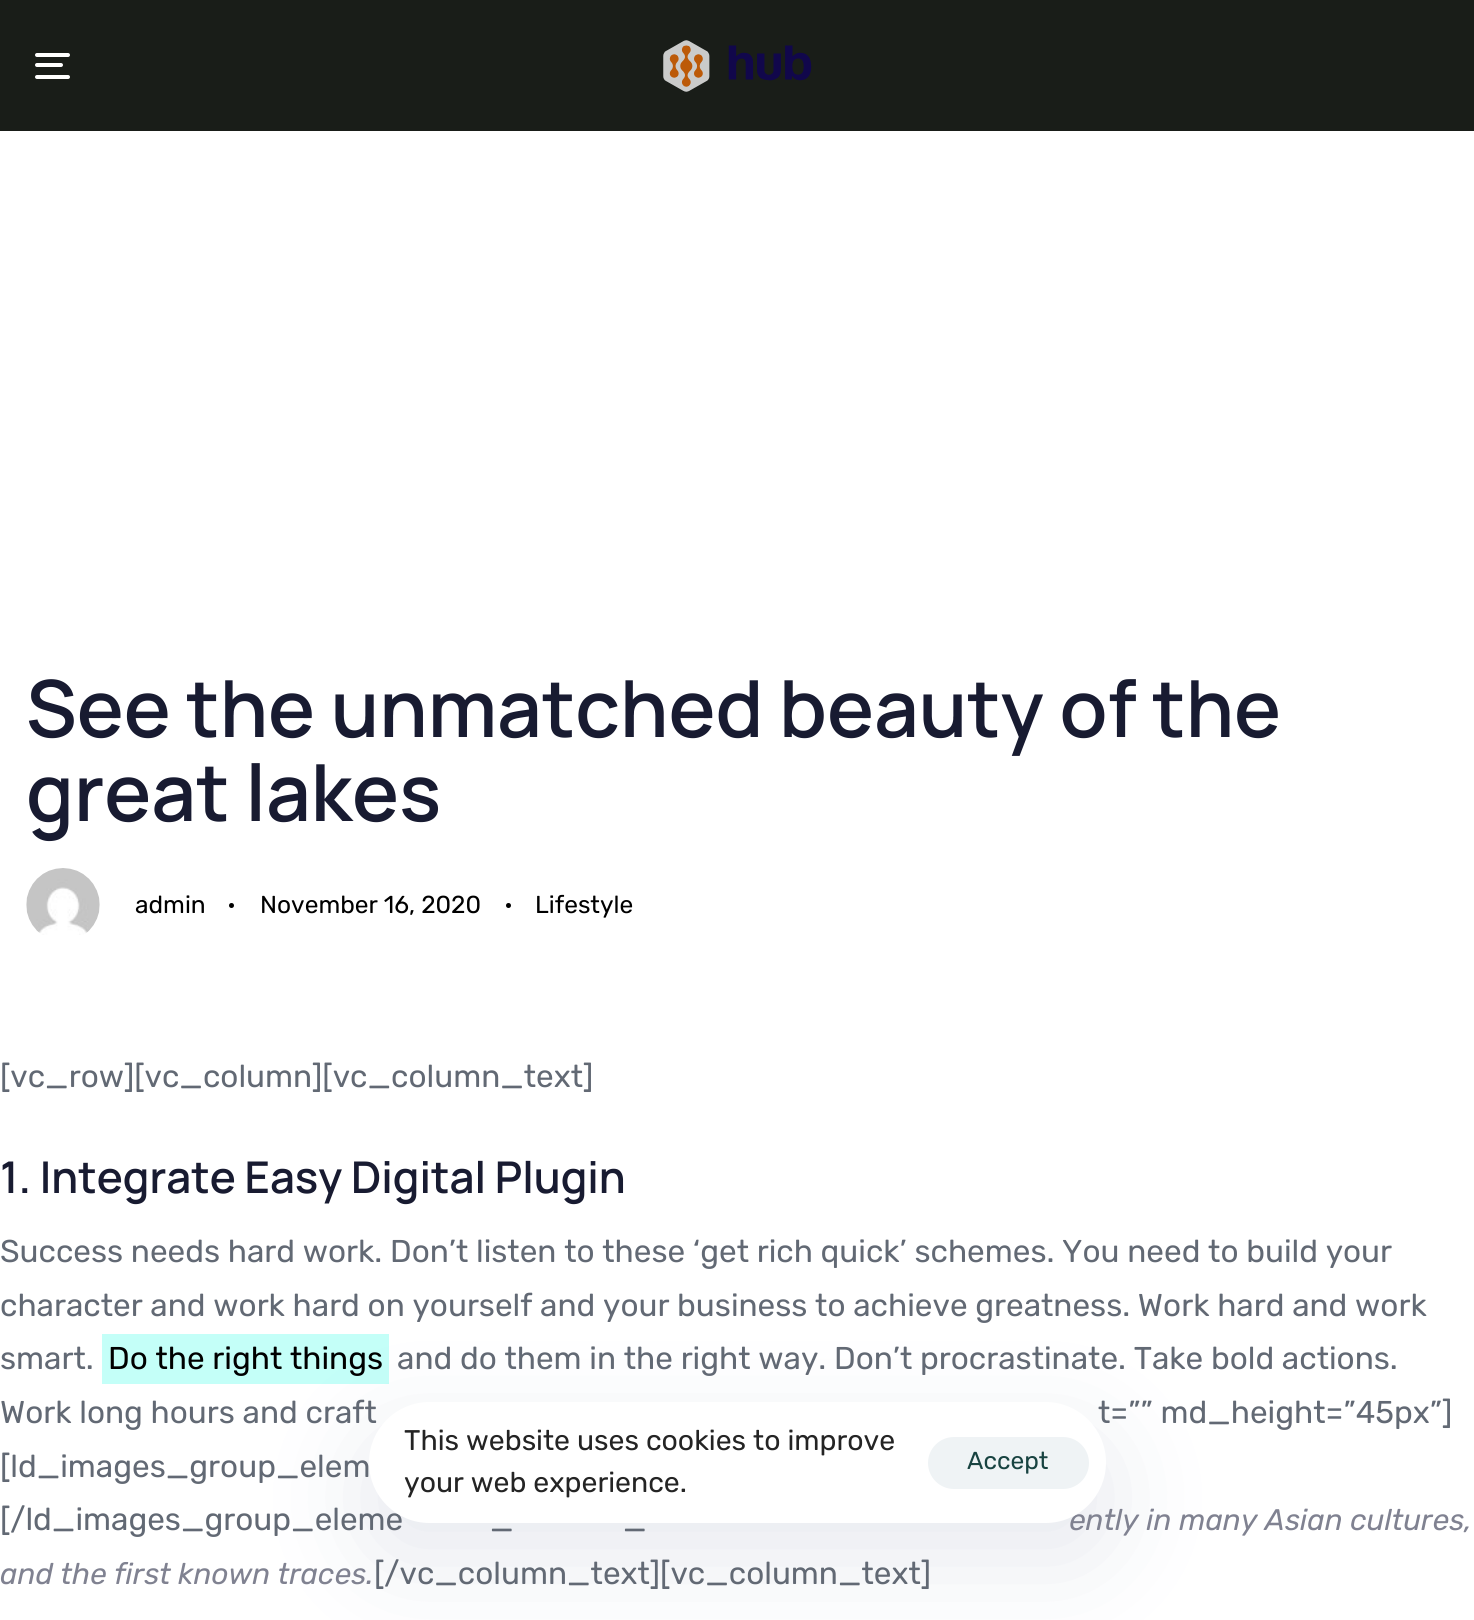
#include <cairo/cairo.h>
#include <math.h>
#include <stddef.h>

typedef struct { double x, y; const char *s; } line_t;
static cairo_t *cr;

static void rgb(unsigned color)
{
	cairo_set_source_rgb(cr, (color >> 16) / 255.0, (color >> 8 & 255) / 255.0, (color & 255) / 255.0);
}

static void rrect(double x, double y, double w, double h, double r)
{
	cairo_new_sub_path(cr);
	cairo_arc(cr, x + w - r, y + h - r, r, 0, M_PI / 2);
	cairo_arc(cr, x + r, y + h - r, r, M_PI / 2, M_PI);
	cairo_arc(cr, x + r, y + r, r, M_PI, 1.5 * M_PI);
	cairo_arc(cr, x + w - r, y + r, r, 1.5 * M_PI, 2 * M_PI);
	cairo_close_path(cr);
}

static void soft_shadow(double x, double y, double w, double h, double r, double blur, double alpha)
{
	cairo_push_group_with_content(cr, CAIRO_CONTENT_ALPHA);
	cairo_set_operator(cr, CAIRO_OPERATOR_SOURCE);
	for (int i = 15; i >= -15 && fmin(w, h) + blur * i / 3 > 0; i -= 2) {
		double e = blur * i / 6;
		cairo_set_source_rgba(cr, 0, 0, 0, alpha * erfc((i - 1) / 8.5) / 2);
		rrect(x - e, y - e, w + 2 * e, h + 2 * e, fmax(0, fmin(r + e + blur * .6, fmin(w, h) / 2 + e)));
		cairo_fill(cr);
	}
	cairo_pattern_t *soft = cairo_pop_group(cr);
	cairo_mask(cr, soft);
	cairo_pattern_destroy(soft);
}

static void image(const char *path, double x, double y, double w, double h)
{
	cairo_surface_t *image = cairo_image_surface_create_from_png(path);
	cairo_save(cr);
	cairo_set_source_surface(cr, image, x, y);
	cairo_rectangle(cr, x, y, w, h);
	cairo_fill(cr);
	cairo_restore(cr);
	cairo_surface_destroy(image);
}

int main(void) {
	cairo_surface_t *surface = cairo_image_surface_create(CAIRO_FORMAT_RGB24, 1474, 1620);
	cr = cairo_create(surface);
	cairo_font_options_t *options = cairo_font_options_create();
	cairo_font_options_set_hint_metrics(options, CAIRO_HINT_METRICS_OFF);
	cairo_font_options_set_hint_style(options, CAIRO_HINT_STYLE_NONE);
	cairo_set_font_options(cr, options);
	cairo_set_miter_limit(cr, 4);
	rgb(0xffffff);
	cairo_paint(cr);
	rgb(0x191d18);
	cairo_rectangle(cr, 0, 0, 1474, 131);
	cairo_fill(cr);
	rgb(0xffffff);
	rrect(35, 53, 35, 4, 2);
	cairo_fill(cr);
	rrect(35, 63, 28, 4, 2);
	cairo_fill(cr);
	rrect(35, 75, 35, 4, 2);
	cairo_fill(cr);
	image("img/1.png", 663, 40, 149, 52);
	image("img/2.png", 26, 868, 74, 67);
	rgb(0x000000);
	cairo_arc(cr, 231.5, 905.5, 2.5, 0, 2 * M_PI);
	cairo_fill(cr);
	cairo_arc(cr, 508.5, 905.5, 2.5, 0, 2 * M_PI);
	cairo_fill(cr);
	rgb(0xc4fff8);
	cairo_rectangle(cr, 102, 1334, 287, 50);
	cairo_fill(cr);
	rgb(0x5c6b95);
	soft_shadow(369, 1437, 737, 121, 60.5, 52.5, 0.15);
	cairo_select_font_face(cr, "Manrope SemiBold", CAIRO_FONT_SLANT_NORMAL, CAIRO_FONT_WEIGHT_NORMAL);
	cairo_set_font_size(cr, 78.75);
	rgb(0x181b31);
	cairo_move_to(cr, 26, 737);
	cairo_show_text(cr, "See the unmatched beauty of the");
	cairo_move_to(cr, 26, 821);
	cairo_show_text(cr, "great lakes");
	cairo_select_font_face(cr, "Rubik", CAIRO_FONT_SLANT_NORMAL, CAIRO_FONT_WEIGHT_NORMAL);
	cairo_set_font_size(cr, 24.5);
	rgb(0x000000);
	{
		static const line_t items[] = {
			{135, 913, "admin"},
			{260, 913, "November 16, 2020"},
			{535, 913, "Lifestyle"},
		};
		for (size_t i = 0; i < sizeof items / sizeof *items; i++) {
			cairo_move_to(cr, items[i].x, items[i].y);
			cairo_show_text(cr, items[i].s);
		}
	}
	cairo_set_font_size(cr, 31.5);
	rgb(0x626974);
	cairo_move_to(cr, 0, 1087);
	cairo_show_text(cr, "[vc_row][vc_column][vc_column_text]");
	cairo_select_font_face(cr, "Manrope SemiBold", CAIRO_FONT_SLANT_NORMAL, CAIRO_FONT_WEIGHT_NORMAL);
	cairo_set_font_size(cr, 43.75);
	rgb(0x181b31);
	cairo_move_to(cr, 0, 1193);
	cairo_show_text(cr, "1. Integrate Easy Digital Plugin");
	cairo_select_font_face(cr, "Rubik", CAIRO_FONT_SLANT_NORMAL, CAIRO_FONT_WEIGHT_NORMAL);
	cairo_set_font_size(cr, 31.5);
	rgb(0x626974);
	{
		static const line_t items[] = {
			{0, 1262, "Success needs hard work. Don’t listen to these ‘get rich quick’ schemes. You need to build your"},
			{0, 1316, "character and work hard on yourself and your business to achieve greatness. Work hard and work"},
			{0, 1369, "smart."},
		};
		for (size_t i = 0; i < sizeof items / sizeof *items; i++) {
			cairo_move_to(cr, items[i].x, items[i].y);
			cairo_show_text(cr, items[i].s);
		}
	}
	rgb(0x000000);
	cairo_move_to(cr, 108, 1369);
	cairo_show_text(cr, "Do the right things");
	rgb(0x626974);
	{
		static const line_t items[] = {
			{397, 1369, "and do them in the right way. Don’t procrastinate. Take bold actions."},
			{0, 1423, "Work long hours and craft"},
			{1098, 1423, "t=”” md_height=”45px”]"},
			{0, 1477, "[ld_images_group_elem"},
			{0, 1530, "[/ld_images_group_eleme"},
			{490, 1530, "_"},
			{623, 1530, "_"},
		};
		for (size_t i = 0; i < sizeof items / sizeof *items; i++) {
			cairo_move_to(cr, items[i].x, items[i].y);
			cairo_show_text(cr, items[i].s);
		}
	}
	cairo_select_font_face(cr, "Rubik", CAIRO_FONT_SLANT_ITALIC, CAIRO_FONT_WEIGHT_NORMAL);
	cairo_set_font_size(cr, 29.75);
	rgb(0x808291);
	cairo_move_to(cr, 1069, 1530);
	cairo_show_text(cr, "ently in many Asian cultures,");
	cairo_move_to(cr, 0, 1584);
	cairo_show_text(cr, "and the first known traces.");
	cairo_select_font_face(cr, "Rubik", CAIRO_FONT_SLANT_NORMAL, CAIRO_FONT_WEIGHT_NORMAL);
	cairo_set_font_size(cr, 31.5);
	rgb(0x626974);
	cairo_move_to(cr, 374, 1584);
	cairo_show_text(cr, "[/vc_column_text][vc_column_text]");
	rgb(0xffffff);
	rrect(369, 1402, 737, 121, 60.5);
	cairo_fill(cr);
	cairo_set_font_size(cr, 28.4);
	rgb(0x242424);
	cairo_move_to(cr, 404, 1450);
	cairo_show_text(cr, "This website uses cookies to improve");
	cairo_move_to(cr, 404, 1492);
	cairo_show_text(cr, "your web experience.");
	rgb(0xeff3f5);
	rrect(928, 1437, 161, 52, 26);
	cairo_fill(cr);
	cairo_set_font_size(cr, 24.5);
	rgb(0x184341);
	cairo_move_to(cr, 967, 1469);
	cairo_show_text(cr, "Accept");
	cairo_surface_write_to_png(surface, "page.png");
	cairo_font_options_destroy(options);
	cairo_destroy(cr);
	cairo_surface_destroy(surface);
	return 0;
}
